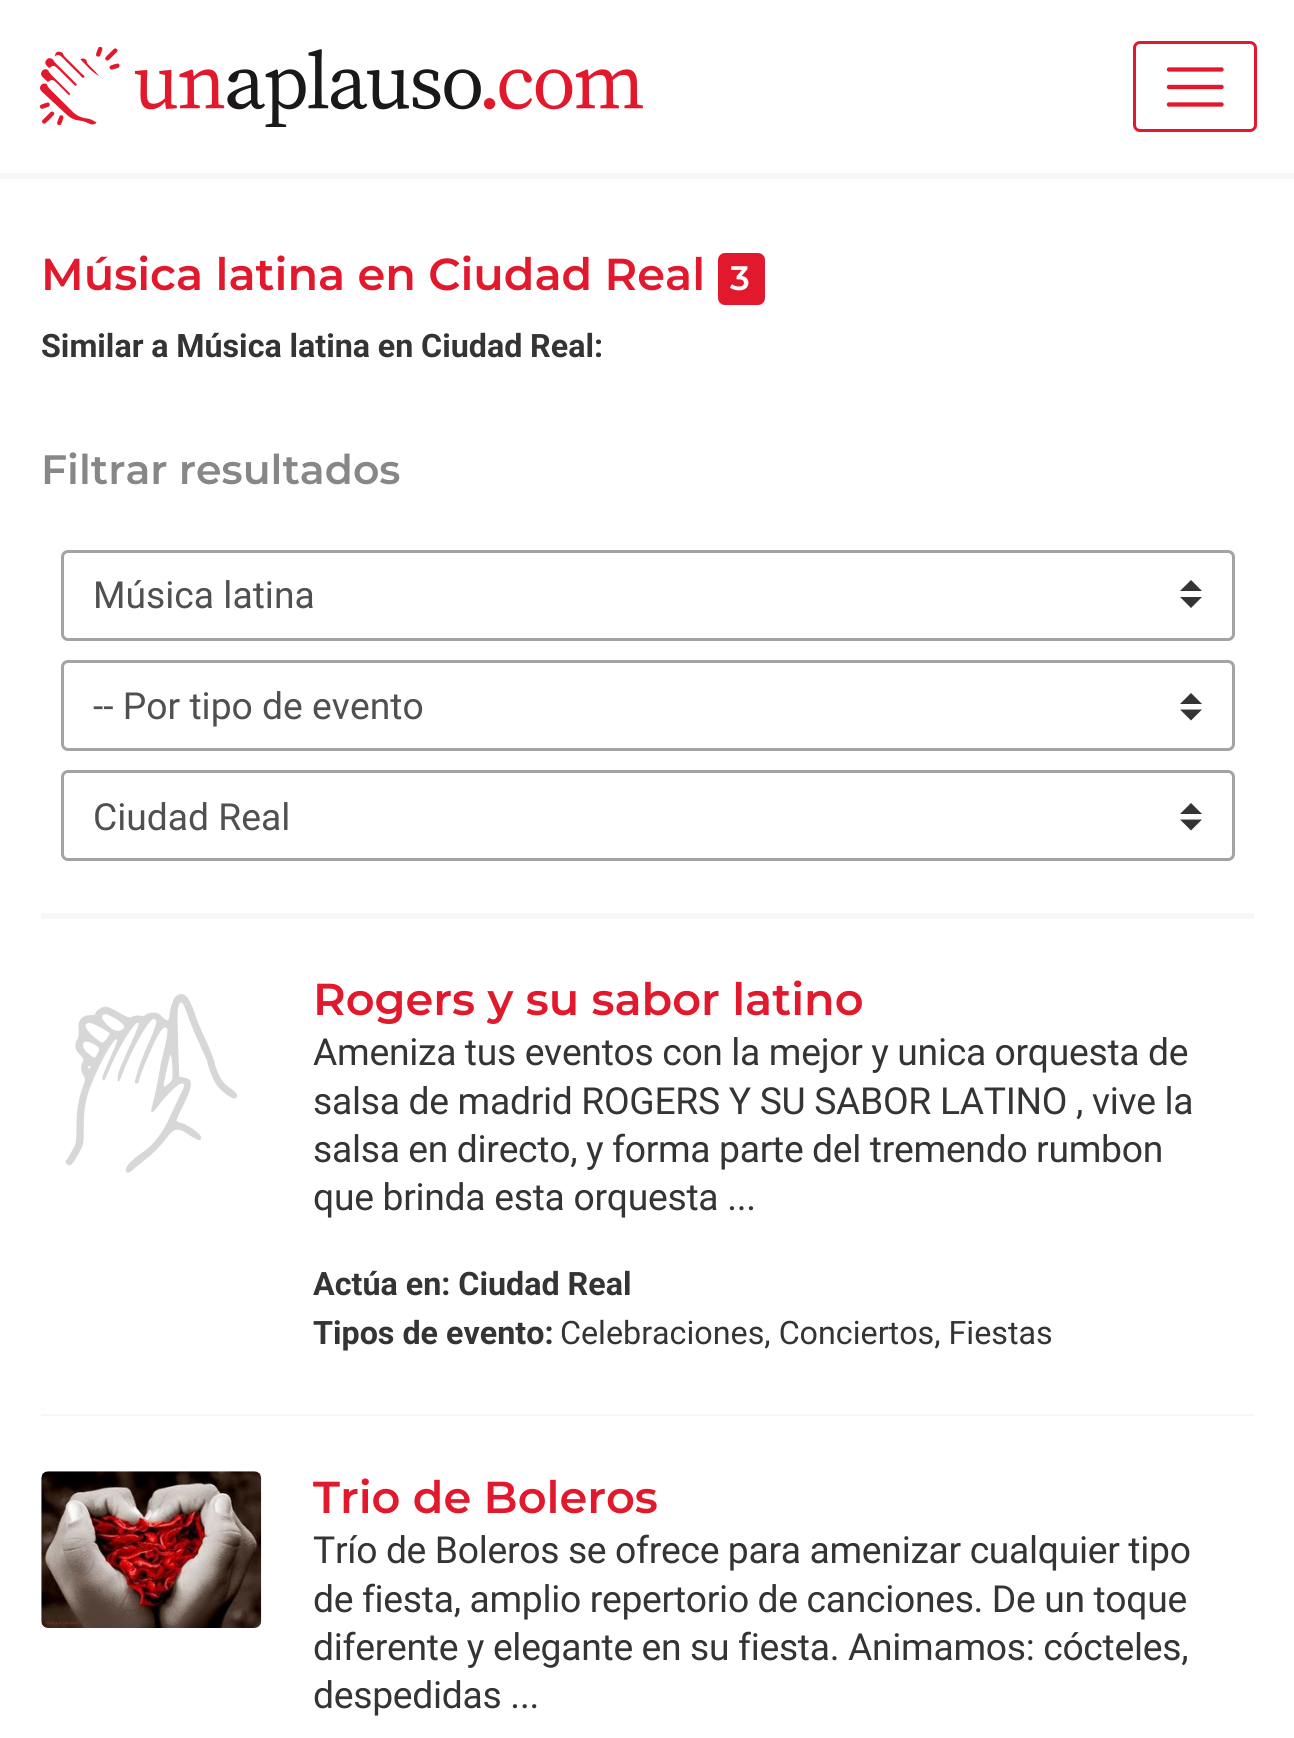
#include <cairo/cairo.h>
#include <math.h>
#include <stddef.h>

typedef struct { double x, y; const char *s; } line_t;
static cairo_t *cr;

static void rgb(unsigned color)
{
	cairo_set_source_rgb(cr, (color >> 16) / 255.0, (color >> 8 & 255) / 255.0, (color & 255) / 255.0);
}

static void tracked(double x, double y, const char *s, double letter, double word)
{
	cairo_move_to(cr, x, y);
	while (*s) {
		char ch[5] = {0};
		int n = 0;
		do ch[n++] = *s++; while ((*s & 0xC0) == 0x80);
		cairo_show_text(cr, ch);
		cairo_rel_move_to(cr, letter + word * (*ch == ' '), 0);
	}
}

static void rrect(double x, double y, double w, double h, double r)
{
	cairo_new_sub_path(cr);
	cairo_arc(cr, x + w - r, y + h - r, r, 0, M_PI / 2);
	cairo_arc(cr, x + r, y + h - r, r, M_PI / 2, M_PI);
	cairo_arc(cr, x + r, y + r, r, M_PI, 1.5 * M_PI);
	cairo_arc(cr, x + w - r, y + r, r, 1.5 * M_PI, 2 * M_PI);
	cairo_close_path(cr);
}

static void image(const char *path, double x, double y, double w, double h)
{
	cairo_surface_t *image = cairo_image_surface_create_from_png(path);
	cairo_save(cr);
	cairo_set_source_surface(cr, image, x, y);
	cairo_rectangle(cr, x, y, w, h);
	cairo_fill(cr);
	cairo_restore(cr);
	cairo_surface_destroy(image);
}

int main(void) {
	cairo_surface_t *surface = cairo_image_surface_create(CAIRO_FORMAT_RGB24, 1294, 1738);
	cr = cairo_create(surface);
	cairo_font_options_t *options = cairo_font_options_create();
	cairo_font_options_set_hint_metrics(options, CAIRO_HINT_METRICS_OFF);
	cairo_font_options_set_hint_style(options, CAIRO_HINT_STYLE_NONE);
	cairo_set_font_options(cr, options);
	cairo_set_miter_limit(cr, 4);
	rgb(0xffffff);
	cairo_paint(cr);
	rgb(0xf7f7f7);
	cairo_rectangle(cr, 0, 173, 1294, 6);
	cairo_fill(cr);
	image("img/1.png", 39, 47, 604, 80);
	rrect(1134.5, 42.5, 121, 88, 5.5);
	rgb(0xe2192d);
	cairo_set_line_width(cr, 3);
	cairo_stroke(cr);
	cairo_new_path(cr);
	cairo_move_to(cr, 1169, 69.5);
	cairo_line_to(cr, 1221.5, 69.5);
	cairo_move_to(cr, 1169, 87);
	cairo_line_to(cr, 1221.5, 87);
	cairo_move_to(cr, 1169, 104.5);
	cairo_line_to(cr, 1221.5, 104.5);
	cairo_set_line_width(cr, 4.4);
	cairo_set_line_cap(cr, CAIRO_LINE_CAP_ROUND);
	cairo_stroke(cr);
	rrect(718, 253, 47, 52, 7);
	cairo_fill(cr);
	rgb(0x353434);
	cairo_new_path(cr);
	cairo_move_to(cr, 1191, 580);
	cairo_line_to(cr, 1180, 591);
	cairo_line_to(cr, 1202, 591);
	cairo_close_path(cr);
	cairo_move_to(cr, 1191, 608);
	cairo_line_to(cr, 1180, 597);
	cairo_line_to(cr, 1202, 597);
	cairo_close_path(cr);
	cairo_fill(cr);
	rrect(62.5, 551.5, 1171, 88, 5.5);
	rgb(0xa5a2a4);
	cairo_set_line_width(cr, 3);
	cairo_set_line_cap(cr, CAIRO_LINE_CAP_BUTT);
	cairo_stroke(cr);
	rgb(0x353434);
	cairo_new_path(cr);
	cairo_move_to(cr, 1191, 693);
	cairo_line_to(cr, 1180, 704);
	cairo_line_to(cr, 1202, 704);
	cairo_close_path(cr);
	cairo_move_to(cr, 1191, 720.5);
	cairo_line_to(cr, 1180, 709.5);
	cairo_line_to(cr, 1202, 709.5);
	cairo_close_path(cr);
	cairo_fill(cr);
	rrect(62.5, 661.5, 1171, 88, 5.5);
	rgb(0xa5a2a4);
	cairo_stroke(cr);
	rgb(0x353434);
	cairo_new_path(cr);
	cairo_move_to(cr, 1191, 803);
	cairo_line_to(cr, 1180, 814);
	cairo_line_to(cr, 1202, 814);
	cairo_close_path(cr);
	cairo_move_to(cr, 1191, 830.5);
	cairo_line_to(cr, 1180, 819.5);
	cairo_line_to(cr, 1202, 819.5);
	cairo_close_path(cr);
	cairo_fill(cr);
	rrect(62.5, 771.5, 1171, 88, 5.5);
	rgb(0xa5a2a4);
	cairo_stroke(cr);
	rgb(0xf7f7f7);
	cairo_rectangle(cr, 41, 913, 1213, 6);
	cairo_fill(cr);
	cairo_rectangle(cr, 41, 1414, 1213, 2);
	cairo_fill(cr);
	image("img/2.png", 65, 994, 173, 179);
	image("img/3.png", 41, 1471, 221, 157);
	cairo_select_font_face(cr, "Montserrat SemiBold", CAIRO_FONT_SLANT_NORMAL, CAIRO_FONT_WEIGHT_NORMAL);
	cairo_set_font_size(cr, 44.7);
	rgb(0xe2192d);
	cairo_move_to(cr, 41, 290);
	cairo_show_text(cr, "Música latina en Ciudad Real");
	cairo_set_font_size(cr, 34);
	rgb(0xffffff);
	cairo_move_to(cr, 730, 290);
	cairo_show_text(cr, "3");
	cairo_select_font_face(cr, "Roboto", CAIRO_FONT_SLANT_NORMAL, CAIRO_FONT_WEIGHT_BOLD);
	cairo_set_font_size(cr, 32.25);
	rgb(0x353434);
	tracked(41, 357, "Similar a Música latina en Ciudad Real:", 0, -0.25);
	cairo_select_font_face(cr, "Montserrat SemiBold", CAIRO_FONT_SLANT_NORMAL, CAIRO_FONT_WEIGHT_NORMAL);
	cairo_set_font_size(cr, 41);
	rgb(0x888687);
	cairo_move_to(cr, 41, 484);
	cairo_show_text(cr, "Filtrar resultados");
	cairo_select_font_face(cr, "Roboto", CAIRO_FONT_SLANT_NORMAL, CAIRO_FONT_WEIGHT_NORMAL);
	cairo_set_font_size(cr, 37.25);
	rgb(0x514f50);
	{
		static const line_t items[] = {
			{93, 608, "Música latina"},
			{93, 719, "-- Por tipo de evento"},
			{93, 830, "Ciudad Real"},
		};
		for (size_t i = 0; i < sizeof items / sizeof *items; i++) {
			cairo_move_to(cr, items[i].x, items[i].y);
			cairo_show_text(cr, items[i].s);
		}
	}
	cairo_select_font_face(cr, "Montserrat SemiBold", CAIRO_FONT_SLANT_NORMAL, CAIRO_FONT_WEIGHT_NORMAL);
	cairo_set_font_size(cr, 44.7);
	rgb(0xe2192d);
	cairo_move_to(cr, 313, 1015);
	cairo_show_text(cr, "Rogers y su sabor latino");
	cairo_select_font_face(cr, "Roboto", CAIRO_FONT_SLANT_NORMAL, CAIRO_FONT_WEIGHT_NORMAL);
	cairo_set_font_size(cr, 37.25);
	rgb(0x353434);
	tracked(313, 1065, "Ameniza tus eventos con la mejor y unica orquesta de", -0.28, -0.25);
	tracked(313, 1114, "salsa de madrid ROGERS Y SU SABOR LATINO , vive la", -0.28, -0.1);
	tracked(313, 1162, "salsa en directo, y forma parte del tremendo rumbon", -0.28, -0.25);
	tracked(313, 1210, "que brinda esta orquesta ...", -0.28, 0);
	cairo_select_font_face(cr, "Roboto", CAIRO_FONT_SLANT_NORMAL, CAIRO_FONT_WEIGHT_BOLD);
	cairo_set_font_size(cr, 32.25);
	cairo_move_to(cr, 313, 1295);
	cairo_show_text(cr, "Actúa en: Ciudad Real");
	cairo_move_to(cr, 313, 1344);
	cairo_show_text(cr, "Tipos de evento:");
	cairo_select_font_face(cr, "Roboto", CAIRO_FONT_SLANT_NORMAL, CAIRO_FONT_WEIGHT_NORMAL);
	cairo_move_to(cr, 560, 1344);
	cairo_show_text(cr, "Celebraciones, Conciertos, Fiestas");
	cairo_select_font_face(cr, "Montserrat SemiBold", CAIRO_FONT_SLANT_NORMAL, CAIRO_FONT_WEIGHT_NORMAL);
	cairo_set_font_size(cr, 44.7);
	rgb(0xe2192d);
	cairo_move_to(cr, 313, 1513);
	cairo_show_text(cr, "Trio de Boleros");
	cairo_select_font_face(cr, "Roboto", CAIRO_FONT_SLANT_NORMAL, CAIRO_FONT_WEIGHT_NORMAL);
	cairo_set_font_size(cr, 37.25);
	rgb(0x353434);
	{
		static const line_t items[] = {
			{313, 1563, "Trío de Boleros se ofrece para amenizar cualquier tipo"},
			{313, 1612, "de fiesta, amplio repertorio de canciones. De un toque"},
			{313, 1660, "diferente y elegante en su fiesta. Animamos: cócteles,"},
		};
		for (size_t i = 0; i < sizeof items / sizeof *items; i++) {
			tracked(items[i].x, items[i].y, items[i].s, -0.28, -0.25);
		}
	}
	tracked(313, 1708, "despedidas ...", -0.28, 0);
	cairo_surface_write_to_png(surface, "page.png");
	cairo_font_options_destroy(options);
	cairo_destroy(cr);
	cairo_surface_destroy(surface);
	return 0;
}
